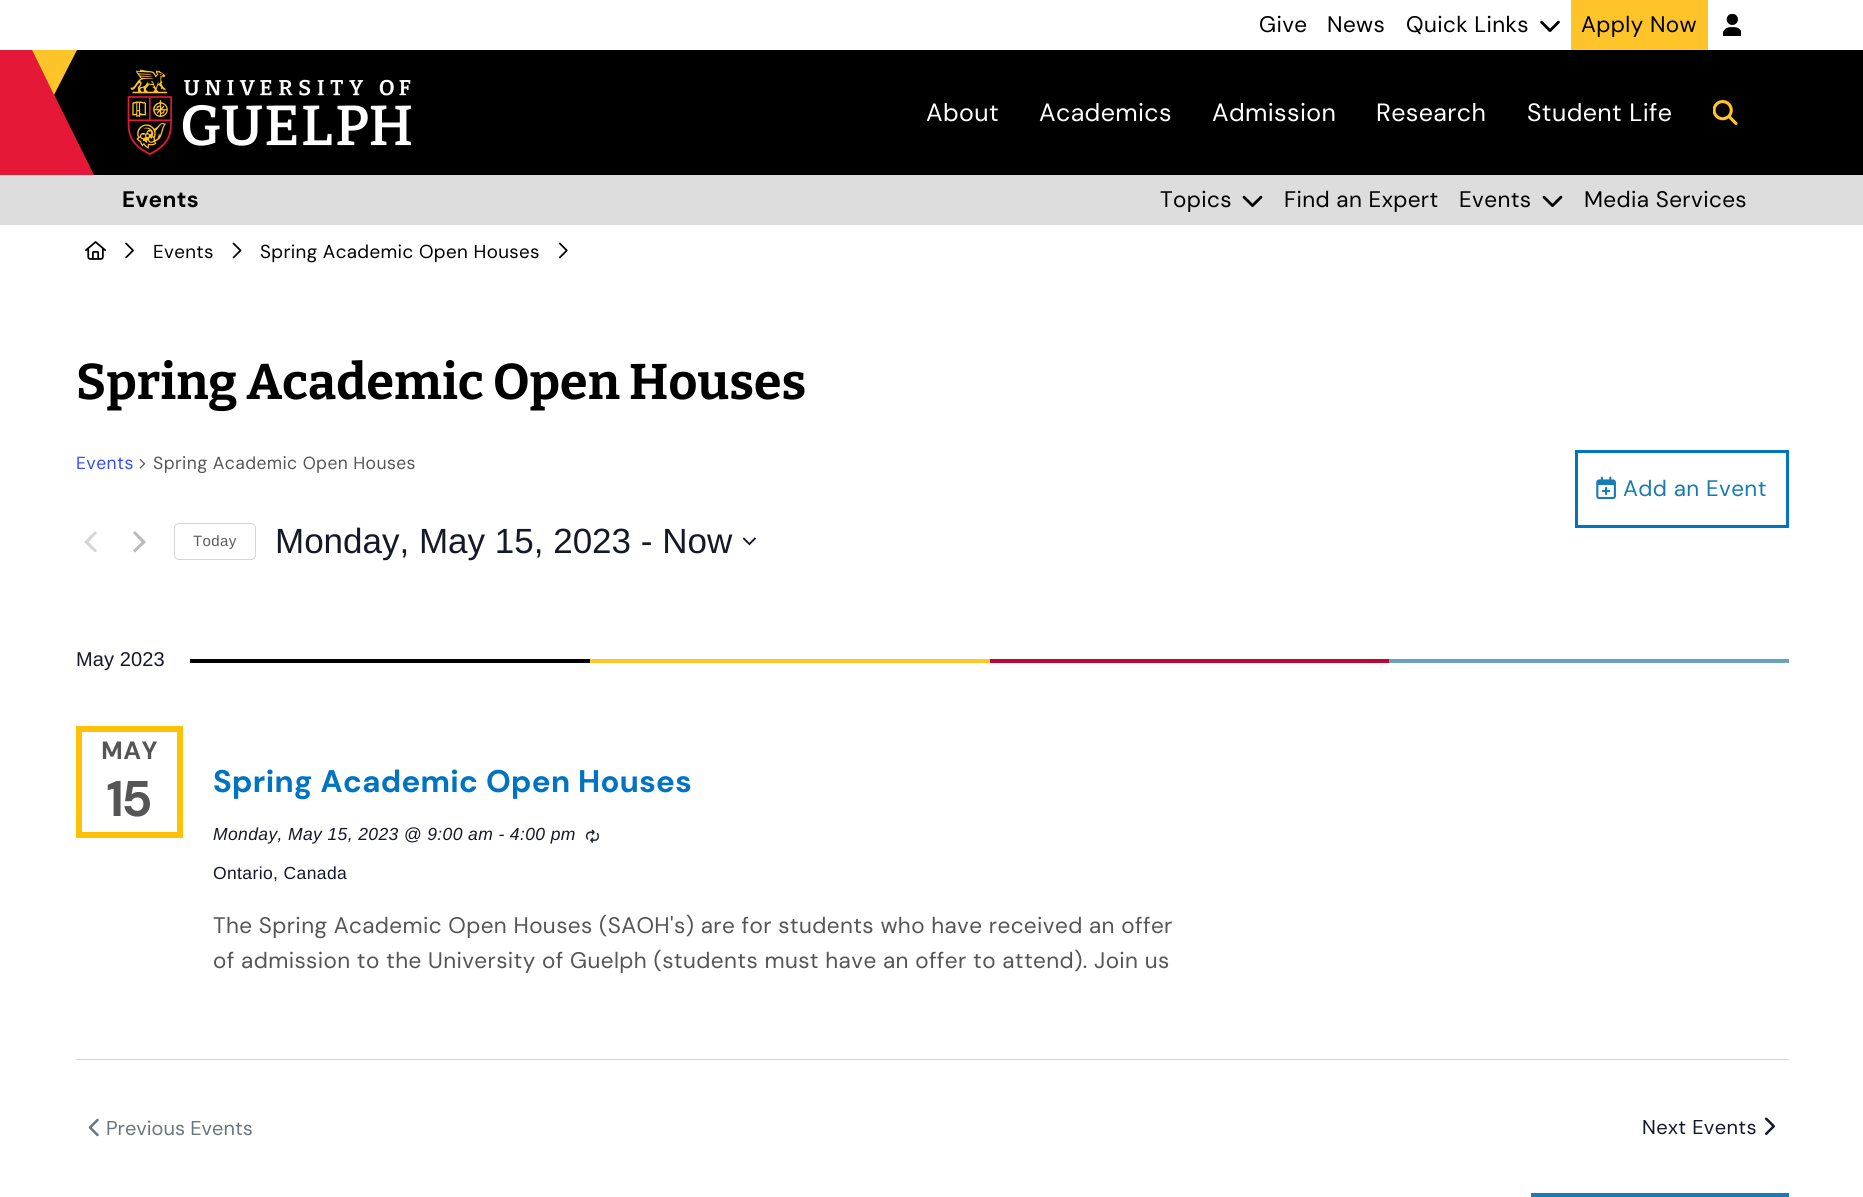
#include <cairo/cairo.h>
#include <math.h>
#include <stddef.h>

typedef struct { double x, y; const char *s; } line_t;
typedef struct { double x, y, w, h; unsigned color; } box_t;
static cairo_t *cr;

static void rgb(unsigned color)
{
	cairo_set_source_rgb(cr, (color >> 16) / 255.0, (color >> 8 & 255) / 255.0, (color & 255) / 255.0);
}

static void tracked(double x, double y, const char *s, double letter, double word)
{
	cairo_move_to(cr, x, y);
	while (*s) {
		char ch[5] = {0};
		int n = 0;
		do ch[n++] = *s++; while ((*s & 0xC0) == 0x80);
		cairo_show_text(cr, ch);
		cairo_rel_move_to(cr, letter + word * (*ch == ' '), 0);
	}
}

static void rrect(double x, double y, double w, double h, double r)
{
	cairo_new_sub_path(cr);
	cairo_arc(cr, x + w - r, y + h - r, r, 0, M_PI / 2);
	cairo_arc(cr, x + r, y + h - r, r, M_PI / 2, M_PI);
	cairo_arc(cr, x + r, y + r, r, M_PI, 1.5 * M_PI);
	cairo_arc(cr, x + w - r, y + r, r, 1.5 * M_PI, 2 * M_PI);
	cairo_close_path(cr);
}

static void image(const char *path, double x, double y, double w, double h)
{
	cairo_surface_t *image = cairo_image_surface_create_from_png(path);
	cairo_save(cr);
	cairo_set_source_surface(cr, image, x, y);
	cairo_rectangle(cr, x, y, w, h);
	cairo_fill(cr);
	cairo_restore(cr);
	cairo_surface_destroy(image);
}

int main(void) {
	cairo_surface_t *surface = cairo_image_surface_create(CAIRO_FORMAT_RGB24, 1863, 1197);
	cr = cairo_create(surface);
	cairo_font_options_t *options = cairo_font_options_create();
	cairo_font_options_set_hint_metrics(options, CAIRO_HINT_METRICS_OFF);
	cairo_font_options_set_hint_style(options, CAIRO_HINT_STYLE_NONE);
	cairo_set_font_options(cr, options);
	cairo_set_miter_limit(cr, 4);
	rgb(0xffffff);
	cairo_paint(cr);
	image("img/1.png", 1540, 20, 20, 12);
	rgb(0xffc429);
	cairo_rectangle(cr, 1571, 0, 137, 50);
	cairo_fill(cr);
	image("img/2.png", 1723, 14, 18, 22);
	rgb(0x000000);
	cairo_rectangle(cr, 32, 50, 1831, 125);
	cairo_fill(cr);
	rgb(0xe51937);
	cairo_new_path(cr);
	cairo_move_to(cr, 32, 50);
	cairo_line_to(cr, 94, 175);
	cairo_line_to(cr, 0, 175);
	cairo_line_to(cr, 0, 50);
	cairo_fill(cr);
	rgb(0xffc429);
	cairo_new_path(cr);
	cairo_move_to(cr, 32, 50);
	cairo_line_to(cr, 54, 95);
	cairo_line_to(cr, 77, 50);
	cairo_fill(cr);
	image("img/3.png", 127, 69, 284, 87);
	image("img/4.png", 1713, 100, 25, 25);
	rgb(0xdddddd);
	cairo_rectangle(cr, 0, 175, 1863, 50);
	cairo_fill(cr);
	image("img/5.png", 1242, 195, 21, 12);
	image("img/5.png", 1542, 195, 21, 12);
	image("img/6.png", 85, 241, 21, 19);
	image("img/7.png", 125, 242, 9, 17);
	image("img/8.png", 232, 242, 10, 17);
	image("img/9.png", 558, 242, 10, 17);
	image("img/10.png", 139, 459, 7, 10);
	rgb(0xd5d5d5);
	cairo_new_path(cr);
	cairo_move_to(cr, 97, 550.5);
	cairo_line_to(cr, 95, 552.5);
	cairo_line_to(cr, 84, 542);
	cairo_line_to(cr, 95, 531);
	cairo_line_to(cr, 97, 533);
	cairo_line_to(cr, 88.5, 542);
	cairo_close_path(cr);
	cairo_fill(cr);
	rgb(0xbababa);
	cairo_new_path(cr);
	cairo_move_to(cr, 133, 533);
	cairo_line_to(cr, 135, 531);
	cairo_line_to(cr, 146, 542);
	cairo_line_to(cr, 135, 552.5);
	cairo_line_to(cr, 133, 550.5);
	cairo_line_to(cr, 141.5, 542);
	cairo_close_path(cr);
	cairo_fill(cr);
	rrect(174.5, 523.5, 81, 36, 4.5);
	rgb(0xd5d5d5);
	cairo_set_line_width(cr, 1);
	cairo_stroke(cr);
	image("img/11.png", 743, 537, 13, 9);
	cairo_rectangle(cr, 1576.5, 451.5, 211, 75);
	rgb(0x0074c1);
	cairo_set_line_width(cr, 3);
	cairo_stroke(cr);
	image("img/12.png", 1596, 476, 20, 24);
	{
		static const box_t items[] = {
			{190, 659, 400, 4, 0x000000},
			{590, 659, 400, 4, 0xffc72a},
			{990, 659, 399, 4, 0xc20430},
			{1389, 659, 400, 4, 0x69a3b9},
		};
		for (size_t i = 0; i < sizeof items / sizeof *items; i++) {
			rgb(items[i].color);
			cairo_rectangle(cr, items[i].x, items[i].y, items[i].w, items[i].h);
			cairo_fill(cr);
		}
	}
	cairo_rectangle(cr, 79, 729, 101, 106);
	rgb(0xffc107);
	cairo_set_line_width(cr, 6);
	cairo_stroke(cr);
	image("img/13.png", 585, 829, 15, 14);
	rgb(0xd5d5d5);
	cairo_rectangle(cr, 76, 1059, 1713, 1);
	cairo_fill(cr);
	image("img/14.png", 88, 1118, 11, 19);
	image("img/15.png", 1765, 1117, 10, 18);
	rgb(0x187bb4);
	cairo_rectangle(cr, 1530, 1193, 259, 4);
	cairo_fill(cr);
	rgb(0xffffff);
	cairo_rectangle(cr, 1530, 1193, 1, 4);
	cairo_fill(cr);
	cairo_select_font_face(cr, "DM Sans", CAIRO_FONT_SLANT_NORMAL, CAIRO_FONT_WEIGHT_NORMAL);
	cairo_set_font_size(cr, 22.5);
	rgb(0x000000);
	{
		static const line_t items[] = {
			{1259, 32, "Give"},
			{1327, 32, "News"},
			{1406, 32, "Quick Links"},
			{1581, 32, "Apply Now"},
		};
		for (size_t i = 0; i < sizeof items / sizeof *items; i++) {
			tracked(items[i].x, items[i].y, items[i].s, 0.38, 0);
		}
	}
	cairo_select_font_face(cr, "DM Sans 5", CAIRO_FONT_SLANT_NORMAL, CAIRO_FONT_WEIGHT_NORMAL);
	cairo_set_font_size(cr, 25);
	rgb(0xffffff);
	{
		static const line_t items[] = {
			{926, 121, "About"},
			{1039, 121, "Academics"},
			{1212, 121, "Admission"},
			{1376, 121, "Research"},
			{1527, 121, "Student Life"},
		};
		for (size_t i = 0; i < sizeof items / sizeof *items; i++) {
			tracked(items[i].x, items[i].y, items[i].s, 0.38, 0);
		}
	}
	cairo_select_font_face(cr, "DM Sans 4", CAIRO_FONT_SLANT_NORMAL, CAIRO_FONT_WEIGHT_BOLD);
	cairo_set_font_size(cr, 22.5);
	rgb(0x000000);
	tracked(122, 207, "Events", 0.38, 0);
	cairo_select_font_face(cr, "DM Sans", CAIRO_FONT_SLANT_NORMAL, CAIRO_FONT_WEIGHT_NORMAL);
	{
		static const line_t items[] = {
			{1160, 207, "Topics"},
			{1284, 207, "Find an Expert"},
			{1459, 207, "Events"},
			{1584, 207, "Media Services"},
		};
		for (size_t i = 0; i < sizeof items / sizeof *items; i++) {
			tracked(items[i].x, items[i].y, items[i].s, 0.38, 0);
		}
	}
	cairo_select_font_face(cr, "DM Sans 4", CAIRO_FONT_SLANT_NORMAL, CAIRO_FONT_WEIGHT_NORMAL);
	cairo_set_font_size(cr, 18.75);
	tracked(153, 258, "Events", 0.38, 0);
	tracked(260, 258, "Spring Academic Open Houses", 0.38, 0);
	cairo_select_font_face(cr, "Bitter Thin", CAIRO_FONT_SLANT_NORMAL, CAIRO_FONT_WEIGHT_NORMAL);
	cairo_set_font_size(cr, 50);
	tracked(76, 399, "Spring Academic Open Houses", 0.1, 0);
	cairo_select_font_face(cr, "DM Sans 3", CAIRO_FONT_SLANT_NORMAL, CAIRO_FONT_WEIGHT_NORMAL);
	cairo_set_font_size(cr, 17.5);
	rgb(0x334aff);
	tracked(76, 469, "Events", 0.38, 0);
	rgb(0x555555);
	tracked(153, 469, "Spring Academic Open Houses", 0.38, 0);
	cairo_select_font_face(cr, "Liberation Sans", CAIRO_FONT_SLANT_NORMAL, CAIRO_FONT_WEIGHT_NORMAL);
	cairo_set_font_size(cr, 15);
	rgb(0x5d5d5d);
	tracked(193, 546, "Today", 0.38, 0);
	cairo_set_font_size(cr, 35);
	rgb(0x141827);
	cairo_move_to(cr, 275, 553);
	cairo_show_text(cr, "Monday, May 15, 2023 - Now");
	cairo_select_font_face(cr, "DM Sans", CAIRO_FONT_SLANT_NORMAL, CAIRO_FONT_WEIGHT_NORMAL);
	cairo_set_font_size(cr, 22.5);
	rgb(0x187bb4);
	tracked(1623, 496, "Add an Event", 0.38, 0);
	cairo_select_font_face(cr, "Liberation Sans", CAIRO_FONT_SLANT_NORMAL, CAIRO_FONT_WEIGHT_NORMAL);
	cairo_set_font_size(cr, 20);
	rgb(0x141827);
	tracked(76, 666, "May 2023", 0.1, 0);
	cairo_select_font_face(cr, "DM Sans", CAIRO_FONT_SLANT_NORMAL, CAIRO_FONT_WEIGHT_BOLD);
	cairo_set_font_size(cr, 25);
	rgb(0x555555);
	tracked(101, 759, "MAY", 0.38, 0);
	cairo_select_font_face(cr, "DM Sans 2", CAIRO_FONT_SLANT_NORMAL, CAIRO_FONT_WEIGHT_BOLD);
	cairo_set_font_size(cr, 50);
	tracked(107, 816, "15", 0.38, 0);
	cairo_select_font_face(cr, "DM Sans 3", CAIRO_FONT_SLANT_NORMAL, CAIRO_FONT_WEIGHT_BOLD);
	cairo_set_font_size(cr, 31.25);
	rgb(0x0074c1);
	tracked(213, 792, "Spring Academic Open Houses", 0.38, 0);
	cairo_select_font_face(cr, "Liberation Sans", CAIRO_FONT_SLANT_ITALIC, CAIRO_FONT_WEIGHT_NORMAL);
	cairo_set_font_size(cr, 17.5);
	rgb(0x141827);
	tracked(213, 840, "Monday, May 15, 2023 @ 9:00 am - 4:00 pm", 0.38, 0);
	cairo_select_font_face(cr, "Liberation Sans", CAIRO_FONT_SLANT_NORMAL, CAIRO_FONT_WEIGHT_NORMAL);
	tracked(213, 879, "Ontario, Canada", 0.38, 0);
	cairo_select_font_face(cr, "DM Sans", CAIRO_FONT_SLANT_NORMAL, CAIRO_FONT_WEIGHT_NORMAL);
	cairo_set_font_size(cr, 22.5);
	rgb(0x555555);
	tracked(213, 933, "The Spring Academic Open Houses (SAOH's) are for students who have received an offer", 0.38, 0);
	tracked(213, 968, "of admission to the University of Guelph (students must have an offer to attend). Join us", 0.38, 0);
	cairo_select_font_face(cr, "DM Sans 2", CAIRO_FONT_SLANT_NORMAL, CAIRO_FONT_WEIGHT_NORMAL);
	cairo_set_font_size(cr, 20);
	rgb(0x6c757d);
	cairo_move_to(cr, 106, 1135);
	cairo_show_text(cr, "Previous Events");
	rgb(0x141827);
	tracked(1642, 1134, "Next Events", 0.38, 0);
	cairo_surface_write_to_png(surface, "page.png");
	cairo_font_options_destroy(options);
	cairo_destroy(cr);
	cairo_surface_destroy(surface);
	return 0;
}
